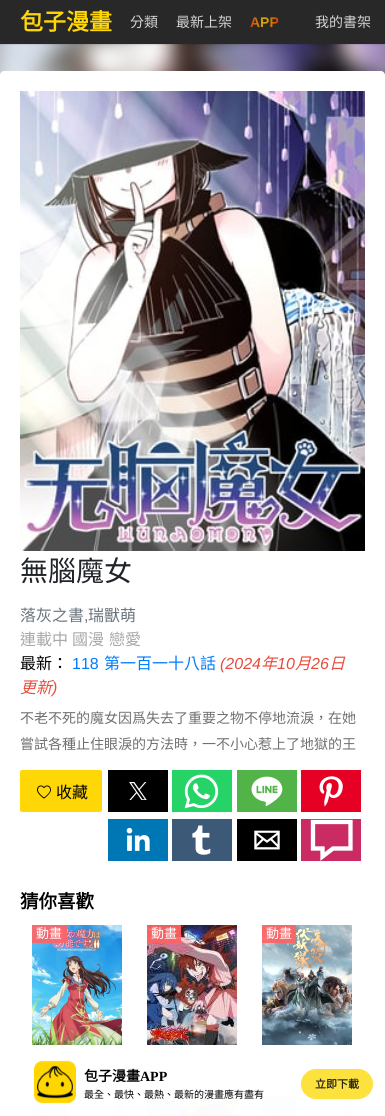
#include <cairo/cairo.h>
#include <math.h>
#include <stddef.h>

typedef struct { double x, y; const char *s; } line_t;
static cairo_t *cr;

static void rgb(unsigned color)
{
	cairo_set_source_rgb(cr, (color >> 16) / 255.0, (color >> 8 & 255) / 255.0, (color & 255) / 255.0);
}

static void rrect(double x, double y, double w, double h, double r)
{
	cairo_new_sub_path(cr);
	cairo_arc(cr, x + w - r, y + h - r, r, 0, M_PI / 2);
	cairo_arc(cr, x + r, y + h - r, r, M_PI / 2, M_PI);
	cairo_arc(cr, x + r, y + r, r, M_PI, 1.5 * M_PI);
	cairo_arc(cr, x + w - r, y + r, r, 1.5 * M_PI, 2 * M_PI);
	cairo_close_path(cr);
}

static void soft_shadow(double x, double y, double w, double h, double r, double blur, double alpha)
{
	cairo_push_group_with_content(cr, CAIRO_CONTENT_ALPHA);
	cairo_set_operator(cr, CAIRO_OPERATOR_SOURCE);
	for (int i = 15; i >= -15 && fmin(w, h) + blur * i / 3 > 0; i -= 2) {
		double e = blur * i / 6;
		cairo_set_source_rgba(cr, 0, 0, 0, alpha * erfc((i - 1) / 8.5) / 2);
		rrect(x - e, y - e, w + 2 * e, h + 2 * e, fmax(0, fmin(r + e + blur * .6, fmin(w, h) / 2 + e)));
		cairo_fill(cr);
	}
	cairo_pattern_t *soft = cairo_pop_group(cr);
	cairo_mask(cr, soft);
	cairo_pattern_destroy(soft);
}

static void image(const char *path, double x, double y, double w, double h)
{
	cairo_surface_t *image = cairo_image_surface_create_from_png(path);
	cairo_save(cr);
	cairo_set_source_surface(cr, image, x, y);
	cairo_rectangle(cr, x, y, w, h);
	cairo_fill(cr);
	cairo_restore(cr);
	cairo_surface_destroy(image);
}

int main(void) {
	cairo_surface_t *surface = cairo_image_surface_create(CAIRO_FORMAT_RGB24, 385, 1116);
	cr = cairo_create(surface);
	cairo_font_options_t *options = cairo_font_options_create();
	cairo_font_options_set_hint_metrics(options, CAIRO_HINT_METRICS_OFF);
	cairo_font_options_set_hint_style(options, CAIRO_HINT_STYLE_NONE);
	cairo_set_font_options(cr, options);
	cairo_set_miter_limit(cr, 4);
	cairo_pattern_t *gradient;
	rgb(0xf1f1f1);
	cairo_paint(cr);
	image("img/1.png", 0, 44, 385, 31);
	image("img/2.png", 0, 44, 385, 31);
	rgb(0x000000);
	soft_shadow(0, 1, 385, 44, 0, 0.5, 0.1);
	rgb(0x282828);
	cairo_rectangle(cr, 0, 0, 385, 44);
	cairo_fill(cr);
	rgb(0xffffff);
	cairo_new_path(cr);
	cairo_move_to(cr, 4, 71);
	cairo_line_to(cr, 381, 71);
	cairo_curve_to(cr, 383, 71, 385, 73, 385, 75);
	cairo_line_to(cr, 385, 891);
	cairo_line_to(cr, 0, 891);
	cairo_line_to(cr, 0, 75);
	cairo_curve_to(cr, 0, 73, 2, 71, 4, 71);
	cairo_close_path(cr);
	cairo_fill(cr);
	image("img/3.png", 20, 91, 345, 460);
	rgb(0xffd706);
	rrect(20, 770, 82, 42, 2);
	cairo_fill(cr);
	image("img/4.png", 37, 785, 14, 14);
	rgb(0x000000);
	cairo_rectangle(cr, 108, 770, 60, 42);
	cairo_fill(cr);
	image("img/5.png", 129, 782, 18, 18);
	rgb(0x25d366);
	cairo_rectangle(cr, 172, 770, 60, 42);
	cairo_fill(cr);
	image("img/6.png", 184, 774, 35, 35);
	rgb(0x52b448);
	cairo_rectangle(cr, 237, 770, 60, 42);
	cairo_fill(cr);
	image("img/7.png", 251, 776, 32, 30);
	rgb(0xe60023);
	cairo_rectangle(cr, 301, 770, 60, 42);
	cairo_fill(cr);
	image("img/8.png", 319, 776, 24, 31);
	rgb(0x0077b5);
	cairo_rectangle(cr, 108, 819, 60, 42);
	cairo_fill(cr);
	image("img/9.png", 126, 827, 24, 24);
	rgb(0x3c5a77);
	cairo_rectangle(cr, 172, 819, 60, 42);
	cairo_fill(cr);
	image("img/10.png", 192, 825, 19, 30);
	rgb(0x000000);
	cairo_rectangle(cr, 237, 819, 60, 42);
	cairo_fill(cr);
	image("img/11.png", 254, 830, 26, 20);
	rgb(0xca2b63);
	cairo_rectangle(cr, 301, 819, 60, 42);
	cairo_fill(cr);
	cairo_new_path(cr);
	cairo_move_to(cr, 322.5, 856.5);
	cairo_line_to(cr, 322.5, 848.5);
	cairo_line_to(cr, 313, 848.5);
	cairo_line_to(cr, 313, 822);
	cairo_line_to(cr, 350.5, 822);
	cairo_line_to(cr, 350.5, 848.5);
	cairo_line_to(cr, 333, 848.5);
	cairo_close_path(cr);
	rgb(0xffffff);
	cairo_set_line_width(cr, 4.3);
	cairo_stroke(cr);
	rrect(0, 891, 385, 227, 2);
	cairo_fill(cr);
	image("img/12.png", 32, 925, 90, 120);
	cairo_set_source_rgba(cr, 1, 0.388, 0.388, 0.9);
	cairo_rectangle(cr, 32, 925, 35, 18);
	cairo_fill(cr);
	image("img/13.png", 147, 925, 90, 120);
	cairo_rectangle(cr, 147, 925, 34, 18);
	cairo_fill(cr);
	image("img/14.png", 262, 925, 90, 120);
	cairo_rectangle(cr, 262, 925, 34, 18);
	cairo_fill(cr);
	image("img/15.png", 32, 1097, 90, 19);
	cairo_set_source_rgba(cr, 0.204, 0.596, 0.859, 0.9);
	cairo_rectangle(cr, 32, 1097, 35, 18);
	cairo_fill(cr);
	image("img/16.png", 147, 1097, 90, 19);
	cairo_rectangle(cr, 147, 1097, 34, 18);
	cairo_fill(cr);
	image("img/15.png", 262, 1097, 90, 19);
	cairo_rectangle(cr, 262, 1097, 34, 18);
	cairo_fill(cr);
	cairo_set_source_rgba(cr, 1, 1, 1, 0.98);
	cairo_rectangle(cr, 32, 1097, 320, 19);
	cairo_fill(cr);
	image("img/17.png", 34, 1060, 42, 43);
	rgb(0xfde23d);
	rrect(301, 1069, 72, 30, 15);
	cairo_fill(cr);
	cairo_select_font_face(cr, "Noto Sans CJK TC", CAIRO_FONT_SLANT_NORMAL, CAIRO_FONT_WEIGHT_BOLD);
	cairo_set_font_size(cr, 23);
	rgb(0xffd706);
	cairo_move_to(cr, 20, 30);
	cairo_show_text(cr, "包子漫畫");
	cairo_select_font_face(cr, "Noto Sans CJK TC", CAIRO_FONT_SLANT_NORMAL, CAIRO_FONT_WEIGHT_NORMAL);
	cairo_set_font_size(cr, 14);
	rgb(0xd4d4d4);
	cairo_move_to(cr, 130, 27);
	cairo_show_text(cr, "分類");
	cairo_move_to(cr, 176, 27);
	cairo_show_text(cr, "最新上架");
	cairo_select_font_face(cr, "Liberation Sans", CAIRO_FONT_SLANT_NORMAL, CAIRO_FONT_WEIGHT_BOLD);
	gradient = cairo_pattern_create_linear(244, 22, 285, 22);
	cairo_pattern_add_color_stop_rgba(gradient, 0, 0.831, 0.031, 0.031, 1);
	cairo_pattern_add_color_stop_rgba(gradient, 0.5, 0.831, 0.706, 0.031, 1);
	cairo_pattern_add_color_stop_rgba(gradient, 1, 0.831, 0.031, 0.031, 1);
	cairo_set_source(cr, gradient);
	cairo_pattern_destroy(gradient);
	cairo_move_to(cr, 250, 27);
	cairo_show_text(cr, "APP");
	cairo_select_font_face(cr, "Noto Sans CJK TC", CAIRO_FONT_SLANT_NORMAL, CAIRO_FONT_WEIGHT_NORMAL);
	rgb(0xd4d4d4);
	cairo_move_to(cr, 315, 27);
	cairo_show_text(cr, "我的書架");
	cairo_set_font_size(cr, 28);
	rgb(0x212529);
	cairo_move_to(cr, 20, 581);
	cairo_show_text(cr, "無腦魔女");
	cairo_set_font_size(cr, 16);
	rgb(0x6c757d);
	cairo_move_to(cr, 20, 621);
	cairo_show_text(cr, "落灰之書");
	cairo_select_font_face(cr, "Liberation Sans", CAIRO_FONT_SLANT_NORMAL, CAIRO_FONT_WEIGHT_NORMAL);
	cairo_move_to(cr, 84, 621);
	cairo_show_text(cr, ",");
	cairo_select_font_face(cr, "Noto Sans CJK TC", CAIRO_FONT_SLANT_NORMAL, CAIRO_FONT_WEIGHT_NORMAL);
	cairo_move_to(cr, 88, 621);
	cairo_show_text(cr, "瑞獸萌");
	rgb(0xa8a8a8);
	{
		static const line_t items[] = {
			{20, 645, "連載中"},
			{72, 645, "國漫"},
			{109, 645, "戀愛"},
		};
		for (size_t i = 0; i < sizeof items / sizeof *items; i++) {
			cairo_move_to(cr, items[i].x, items[i].y);
			cairo_show_text(cr, items[i].s);
		}
	}
	rgb(0x000000);
	cairo_move_to(cr, 20, 669);
	cairo_show_text(cr, "最新：");
	cairo_select_font_face(cr, "Liberation Sans", CAIRO_FONT_SLANT_NORMAL, CAIRO_FONT_WEIGHT_NORMAL);
	rgb(0x007bff);
	cairo_move_to(cr, 72, 669);
	cairo_show_text(cr, "118");
	cairo_select_font_face(cr, "Noto Sans CJK TC", CAIRO_FONT_SLANT_NORMAL, CAIRO_FONT_WEIGHT_NORMAL);
	cairo_move_to(cr, 104, 669);
	cairo_show_text(cr, "第一百一十八話");
	cairo_select_font_face(cr, "Liberation Sans", CAIRO_FONT_SLANT_ITALIC, CAIRO_FONT_WEIGHT_NORMAL);
	rgb(0xe74c3c);
	cairo_move_to(cr, 220, 669);
	cairo_show_text(cr, "(2024");
	cairo_select_font_face(cr, "Noto Sans CJK TC", CAIRO_FONT_SLANT_ITALIC, CAIRO_FONT_WEIGHT_NORMAL);
	cairo_move_to(cr, 261, 669);
	cairo_show_text(cr, "年");
	cairo_select_font_face(cr, "Liberation Sans", CAIRO_FONT_SLANT_ITALIC, CAIRO_FONT_WEIGHT_NORMAL);
	cairo_move_to(cr, 277, 669);
	cairo_show_text(cr, "10");
	cairo_select_font_face(cr, "Noto Sans CJK TC", CAIRO_FONT_SLANT_ITALIC, CAIRO_FONT_WEIGHT_NORMAL);
	cairo_move_to(cr, 295, 669);
	cairo_show_text(cr, "月");
	cairo_select_font_face(cr, "Liberation Sans", CAIRO_FONT_SLANT_ITALIC, CAIRO_FONT_WEIGHT_NORMAL);
	cairo_move_to(cr, 311, 669);
	cairo_show_text(cr, "26");
	cairo_select_font_face(cr, "Noto Sans CJK TC", CAIRO_FONT_SLANT_ITALIC, CAIRO_FONT_WEIGHT_NORMAL);
	cairo_move_to(cr, 329, 669);
	cairo_show_text(cr, "日");
	cairo_move_to(cr, 20, 693);
	cairo_show_text(cr, "更新");
	cairo_select_font_face(cr, "Liberation Sans", CAIRO_FONT_SLANT_ITALIC, CAIRO_FONT_WEIGHT_NORMAL);
	cairo_move_to(cr, 52, 693);
	cairo_show_text(cr, ")");
	cairo_select_font_face(cr, "Noto Sans CJK TC", CAIRO_FONT_SLANT_NORMAL, CAIRO_FONT_WEIGHT_NORMAL);
	cairo_set_font_size(cr, 14);
	rgb(0x707070);
	cairo_move_to(cr, 20, 723);
	cairo_show_text(cr, "不老不死的魔女因爲失去了重要之物不停地流淚，在她");
	cairo_move_to(cr, 20, 749);
	cairo_show_text(cr, "嘗試各種止住眼淚的方法時，一不小心惹上了地獄的王");
	cairo_set_font_size(cr, 16);
	rgb(0x000000);
	cairo_move_to(cr, 56, 798);
	cairo_show_text(cr, "收藏");
	cairo_select_font_face(cr, "Noto Sans CJK TC", CAIRO_FONT_SLANT_NORMAL, CAIRO_FONT_WEIGHT_BOLD);
	cairo_set_font_size(cr, 18.5);
	cairo_move_to(cr, 20, 908);
	cairo_show_text(cr, "猜你喜歡");
	cairo_select_font_face(cr, "Noto Sans CJK TC", CAIRO_FONT_SLANT_NORMAL, CAIRO_FONT_WEIGHT_NORMAL);
	cairo_set_font_size(cr, 13);
	rgb(0xffffff);
	{
		static const line_t items[] = {
			{36, 938, "動畫"},
			{151, 938, "動畫"},
			{266, 938, "動畫"},
		};
		for (size_t i = 0; i < sizeof items / sizeof *items; i++) {
			cairo_move_to(cr, items[i].x, items[i].y);
			cairo_show_text(cr, items[i].s);
		}
	}
	cairo_select_font_face(cr, "Noto Sans CJK TC", CAIRO_FONT_SLANT_NORMAL, CAIRO_FONT_WEIGHT_BOLD);
	cairo_set_font_size(cr, 14);
	rgb(0x000000);
	cairo_move_to(cr, 84, 1081);
	cairo_show_text(cr, "包子漫畫");
	cairo_select_font_face(cr, "Liberation Serif", CAIRO_FONT_SLANT_NORMAL, CAIRO_FONT_WEIGHT_BOLD);
	cairo_move_to(cr, 140, 1081);
	cairo_show_text(cr, "APP");
	cairo_select_font_face(cr, "Noto Sans CJK TC", CAIRO_FONT_SLANT_NORMAL, CAIRO_FONT_WEIGHT_NORMAL);
	cairo_set_font_size(cr, 10);
	cairo_move_to(cr, 84, 1098);
	cairo_show_text(cr, "最全、最快、最熱、最新的漫畫應有盡有");
	cairo_select_font_face(cr, "Noto Sans CJK TC", CAIRO_FONT_SLANT_NORMAL, CAIRO_FONT_WEIGHT_BOLD);
	cairo_set_font_size(cr, 11);
	rgb(0x222222);
	cairo_move_to(cr, 315, 1088);
	cairo_show_text(cr, "立即下載");
	cairo_surface_write_to_png(surface, "page.png");
	cairo_font_options_destroy(options);
	cairo_destroy(cr);
	cairo_surface_destroy(surface);
	return 0;
}
